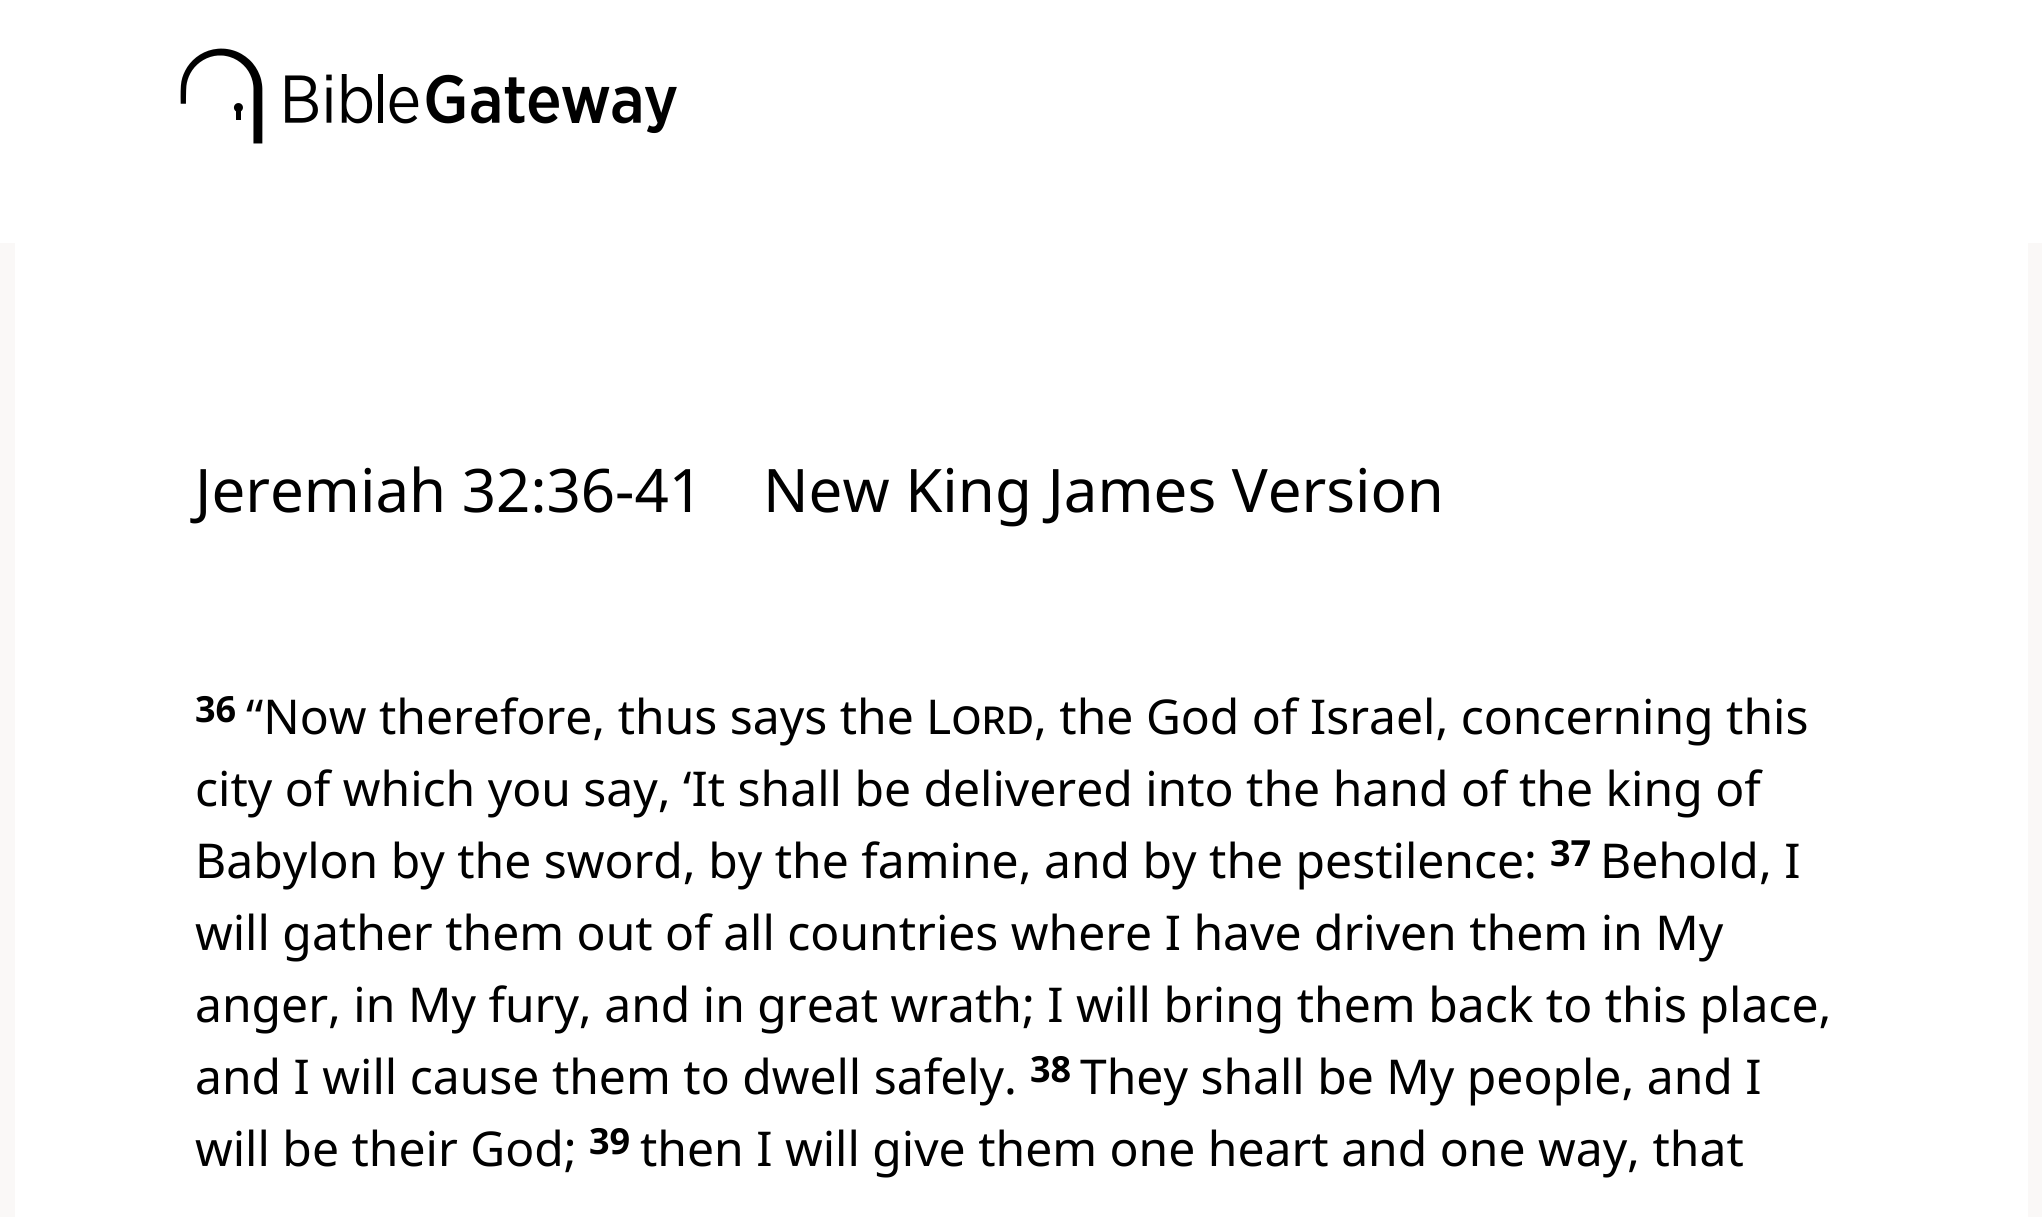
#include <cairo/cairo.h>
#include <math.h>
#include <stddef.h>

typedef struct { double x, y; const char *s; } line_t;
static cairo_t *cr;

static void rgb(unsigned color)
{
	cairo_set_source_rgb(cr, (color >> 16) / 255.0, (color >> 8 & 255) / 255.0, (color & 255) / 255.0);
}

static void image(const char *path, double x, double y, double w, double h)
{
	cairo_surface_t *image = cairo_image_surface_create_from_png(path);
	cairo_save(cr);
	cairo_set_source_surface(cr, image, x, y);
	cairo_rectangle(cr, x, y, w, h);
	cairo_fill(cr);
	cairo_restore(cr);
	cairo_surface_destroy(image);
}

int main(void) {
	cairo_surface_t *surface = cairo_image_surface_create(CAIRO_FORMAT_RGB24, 2042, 1217);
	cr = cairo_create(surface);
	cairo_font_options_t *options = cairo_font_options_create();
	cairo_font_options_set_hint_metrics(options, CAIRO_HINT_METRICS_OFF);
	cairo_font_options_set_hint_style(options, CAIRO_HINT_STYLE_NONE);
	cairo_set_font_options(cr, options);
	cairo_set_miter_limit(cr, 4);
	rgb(0xfaf8f7);
	cairo_paint(cr);
	rgb(0xffffff);
	cairo_rectangle(cr, 0, 0, 2042, 243);
	cairo_fill(cr);
	image("img/1.png", 180, 48, 497, 96);
	cairo_rectangle(cr, 15, 243, 2013, 974);
	cairo_fill(cr);
	cairo_select_font_face(cr, "Noto Sans", CAIRO_FONT_SLANT_NORMAL, CAIRO_FONT_WEIGHT_NORMAL);
	cairo_set_font_size(cr, 60);
	rgb(0x000000);
	cairo_move_to(cr, 195, 512);
	cairo_show_text(cr, "Jeremiah 32:36-41");
	cairo_move_to(cr, 763, 512);
	cairo_show_text(cr, "New King James Version");
	cairo_select_font_face(cr, "Noto Sans", CAIRO_FONT_SLANT_NORMAL, CAIRO_FONT_WEIGHT_BOLD);
	cairo_set_font_size(cr, 36);
	cairo_move_to(cr, 195, 722);
	cairo_show_text(cr, "36");
	cairo_select_font_face(cr, "Noto Sans", CAIRO_FONT_SLANT_NORMAL, CAIRO_FONT_WEIGHT_NORMAL);
	cairo_set_font_size(cr, 48);
	cairo_move_to(cr, 246, 734);
	cairo_show_text(cr, "“Now therefore, thus says the");
	cairo_select_font_face(cr, "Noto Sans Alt", CAIRO_FONT_SLANT_NORMAL, CAIRO_FONT_WEIGHT_NORMAL);
	cairo_move_to(cr, 926, 734);
	cairo_show_text(cr, "Lord");
	cairo_select_font_face(cr, "Noto Sans", CAIRO_FONT_SLANT_NORMAL, CAIRO_FONT_WEIGHT_NORMAL);
	{
		static const line_t items[] = {
			{1034, 734, ", the God of Israel, concerning this"},
			{195, 806, "city of which you say, ‘It shall be delivered into the hand of the king of"},
			{195, 878, "Babylon by the sword, by the famine, and by the pestilence:"},
		};
		for (size_t i = 0; i < sizeof items / sizeof *items; i++) {
			cairo_move_to(cr, items[i].x, items[i].y);
			cairo_show_text(cr, items[i].s);
		}
	}
	cairo_select_font_face(cr, "Noto Sans", CAIRO_FONT_SLANT_NORMAL, CAIRO_FONT_WEIGHT_BOLD);
	cairo_set_font_size(cr, 36);
	cairo_move_to(cr, 1550, 866);
	cairo_show_text(cr, "37");
	cairo_select_font_face(cr, "Noto Sans", CAIRO_FONT_SLANT_NORMAL, CAIRO_FONT_WEIGHT_NORMAL);
	cairo_set_font_size(cr, 48);
	{
		static const line_t items[] = {
			{1600, 878, "Behold, I"},
			{195, 950, "will gather them out of all countries where I have driven them in My"},
			{195, 1022, "anger, in My fury, and in great wrath; I will bring them back to this place,"},
			{195, 1094, "and I will cause them to dwell safely."},
		};
		for (size_t i = 0; i < sizeof items / sizeof *items; i++) {
			cairo_move_to(cr, items[i].x, items[i].y);
			cairo_show_text(cr, items[i].s);
		}
	}
	cairo_select_font_face(cr, "Noto Sans", CAIRO_FONT_SLANT_NORMAL, CAIRO_FONT_WEIGHT_BOLD);
	cairo_set_font_size(cr, 36);
	cairo_move_to(cr, 1030, 1082);
	cairo_show_text(cr, "38");
	cairo_select_font_face(cr, "Noto Sans", CAIRO_FONT_SLANT_NORMAL, CAIRO_FONT_WEIGHT_NORMAL);
	cairo_set_font_size(cr, 48);
	cairo_move_to(cr, 1080, 1094);
	cairo_show_text(cr, "They shall be My people, and I");
	cairo_move_to(cr, 195, 1166);
	cairo_show_text(cr, "will be their God;");
	cairo_select_font_face(cr, "Noto Sans", CAIRO_FONT_SLANT_NORMAL, CAIRO_FONT_WEIGHT_BOLD);
	cairo_set_font_size(cr, 36);
	cairo_move_to(cr, 589, 1154);
	cairo_show_text(cr, "39");
	cairo_select_font_face(cr, "Noto Sans", CAIRO_FONT_SLANT_NORMAL, CAIRO_FONT_WEIGHT_NORMAL);
	cairo_set_font_size(cr, 48);
	cairo_move_to(cr, 640, 1166);
	cairo_show_text(cr, "then I will give them one heart and one way, that");
	cairo_surface_write_to_png(surface, "page.png");
	cairo_font_options_destroy(options);
	cairo_destroy(cr);
	cairo_surface_destroy(surface);
	return 0;
}
